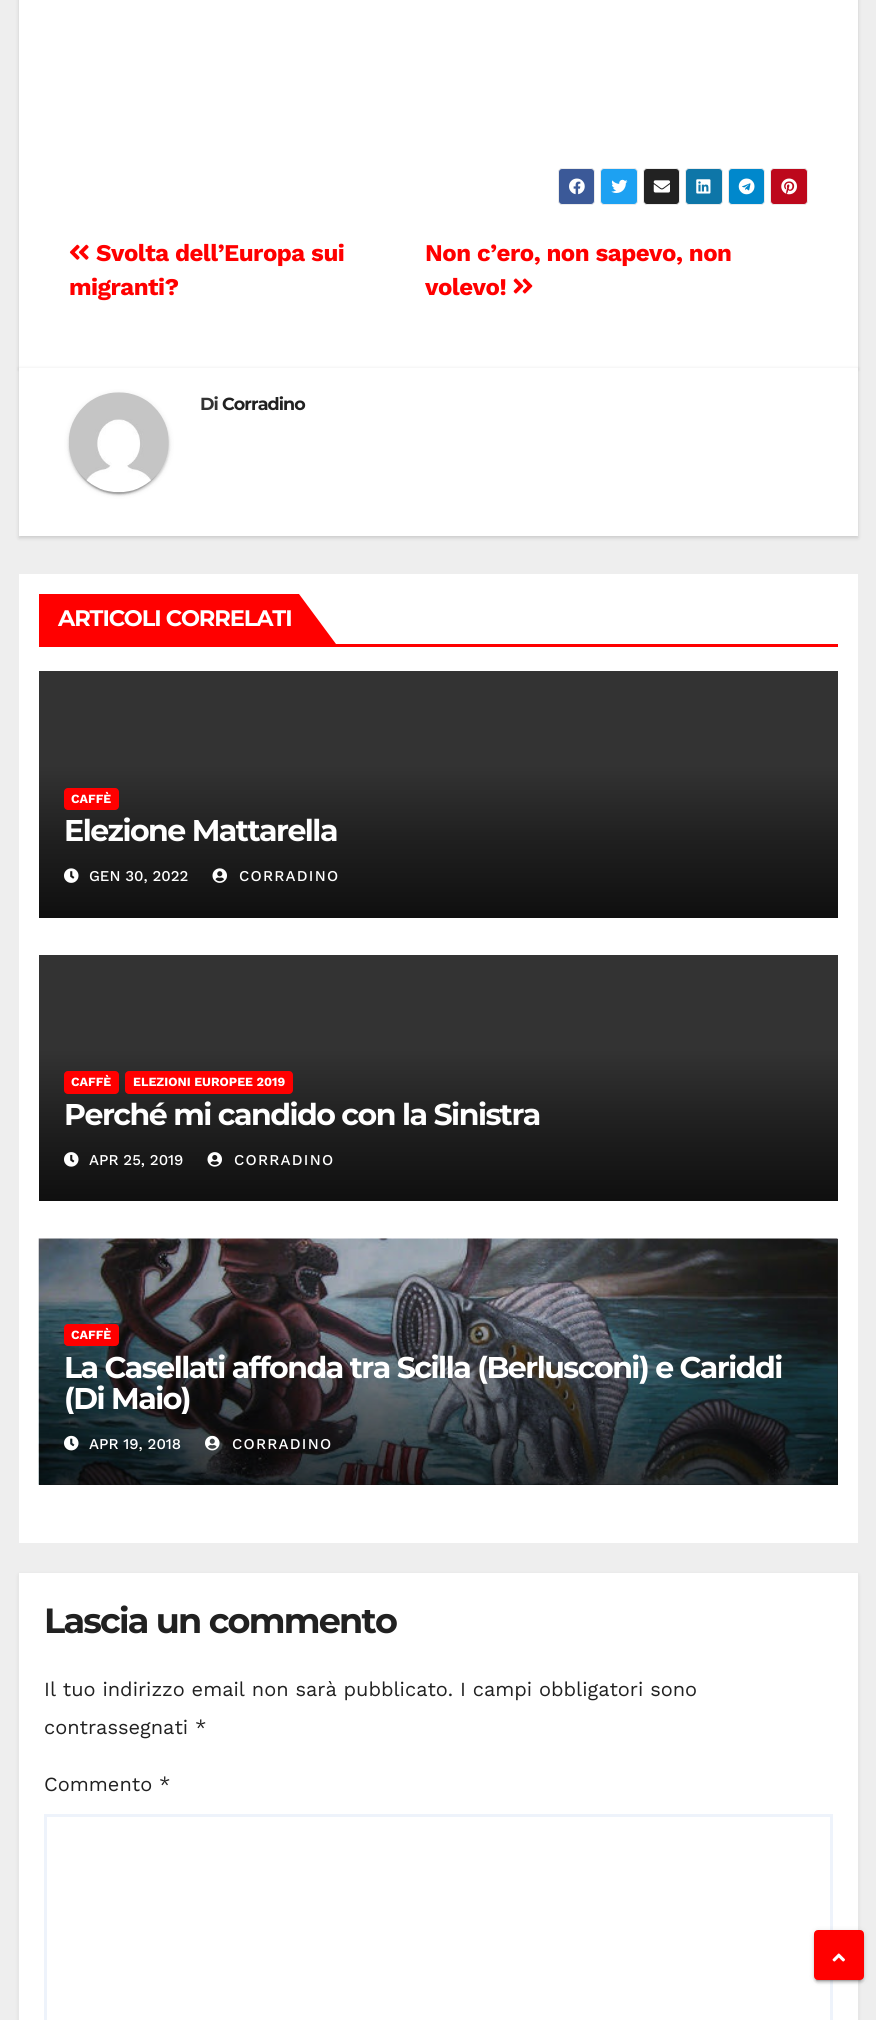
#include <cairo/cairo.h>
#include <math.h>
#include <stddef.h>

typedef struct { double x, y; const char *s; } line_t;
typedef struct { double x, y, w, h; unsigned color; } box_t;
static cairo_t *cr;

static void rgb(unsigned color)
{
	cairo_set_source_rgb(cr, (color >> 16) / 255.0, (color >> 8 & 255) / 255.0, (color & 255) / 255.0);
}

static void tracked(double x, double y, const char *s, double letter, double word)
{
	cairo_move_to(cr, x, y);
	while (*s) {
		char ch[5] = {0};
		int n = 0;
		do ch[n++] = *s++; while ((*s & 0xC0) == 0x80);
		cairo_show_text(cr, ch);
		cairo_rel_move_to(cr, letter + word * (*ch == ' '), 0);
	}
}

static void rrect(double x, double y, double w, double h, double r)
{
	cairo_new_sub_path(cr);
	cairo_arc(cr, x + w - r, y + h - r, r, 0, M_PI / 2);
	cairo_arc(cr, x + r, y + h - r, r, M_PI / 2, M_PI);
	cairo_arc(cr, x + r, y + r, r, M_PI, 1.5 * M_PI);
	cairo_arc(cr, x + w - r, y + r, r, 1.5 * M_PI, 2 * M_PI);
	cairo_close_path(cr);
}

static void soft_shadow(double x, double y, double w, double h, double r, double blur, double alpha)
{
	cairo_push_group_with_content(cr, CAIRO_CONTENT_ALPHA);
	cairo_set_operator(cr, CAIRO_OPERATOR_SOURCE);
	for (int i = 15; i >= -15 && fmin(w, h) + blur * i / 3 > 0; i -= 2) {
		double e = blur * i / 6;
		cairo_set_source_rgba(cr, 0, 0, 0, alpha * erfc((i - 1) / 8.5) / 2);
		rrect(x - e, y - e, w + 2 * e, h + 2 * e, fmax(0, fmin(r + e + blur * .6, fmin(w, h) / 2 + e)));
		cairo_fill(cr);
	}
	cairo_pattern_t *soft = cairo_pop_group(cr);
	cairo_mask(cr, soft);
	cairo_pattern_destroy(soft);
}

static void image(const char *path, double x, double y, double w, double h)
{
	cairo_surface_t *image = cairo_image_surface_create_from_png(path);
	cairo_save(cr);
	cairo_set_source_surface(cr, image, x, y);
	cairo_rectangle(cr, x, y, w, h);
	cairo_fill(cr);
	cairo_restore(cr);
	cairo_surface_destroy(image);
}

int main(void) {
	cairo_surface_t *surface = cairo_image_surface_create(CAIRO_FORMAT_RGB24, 876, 2020);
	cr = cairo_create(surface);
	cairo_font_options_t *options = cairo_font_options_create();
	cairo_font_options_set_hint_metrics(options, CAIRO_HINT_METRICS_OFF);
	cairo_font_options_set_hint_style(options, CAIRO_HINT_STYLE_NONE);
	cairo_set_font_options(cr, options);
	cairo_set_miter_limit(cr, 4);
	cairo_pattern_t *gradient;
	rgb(0xeeeeee);
	cairo_paint(cr);
	rgb(0x000000);
	soft_shadow(19, -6, 839, 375, 0, 2, 0.15);
	rgb(0xffffff);
	cairo_rectangle(cr, 19, 0, 839, 368);
	cairo_fill(cr);
	rgb(0x3b5998);
	rrect(558.5, 168.5, 36, 36, 3.5);
	cairo_fill_preserve(cr);
	rgb(0xebebeb);
	cairo_set_line_width(cr, 1);
	cairo_stroke(cr);
	image("img/1.png", 569, 178, 16, 17);
	rgb(0x1da1f2);
	rrect(600.5, 168.5, 37, 36, 3.5);
	cairo_fill_preserve(cr);
	rgb(0xebebeb);
	cairo_stroke(cr);
	image("img/2.png", 611, 179, 17, 14);
	rgb(0x222222);
	rrect(643.5, 168.5, 36, 36, 3.5);
	cairo_fill_preserve(cr);
	rgb(0xebebeb);
	cairo_stroke(cr);
	image("img/3.png", 653, 180, 17, 13);
	rgb(0x0e76a8);
	rrect(685.5, 168.5, 37, 36, 3.5);
	cairo_fill_preserve(cr);
	rgb(0xebebeb);
	cairo_stroke(cr);
	image("img/4.png", 696, 179, 15, 15);
	rgb(0x0088cc);
	rrect(728.5, 168.5, 36, 36, 3.5);
	cairo_fill_preserve(cr);
	rgb(0xebebeb);
	cairo_stroke(cr);
	image("img/5.png", 738, 178, 17, 17);
	rgb(0xbd081c);
	rrect(770.5, 168.5, 37, 36, 3.5);
	cairo_fill_preserve(cr);
	rgb(0xebebeb);
	cairo_stroke(cr);
	image("img/6.png", 781, 178, 16, 17);
	image("img/7.png", 69, 244, 20, 16);
	image("img/8.png", 513, 278, 20, 16);
	rgb(0x000000);
	soft_shadow(19, 369, 839, 169, 0, 2, 0.15);
	rgb(0xffffff);
	cairo_rectangle(cr, 19, 368, 839, 168);
	cairo_fill(cr);
	rgb(0x000000);
	soft_shadow(69, 394, 100, 100, 50, 3, 0.12);
	soft_shadow(71, 399, 95, 95, 47.5, 0.5, 0.2);
	soft_shadow(69, 395, 100, 100, 50, 1, 0.14);
	image("img/9.png", 69, 392, 100, 100);
	{
		static const box_t items[] = {
			{19, 574, 839, 969, 0xffffff},
			{39, 644, 799, 3, 0xff0000},
			{39, 594, 260, 50, 0xff0000},
		};
		for (size_t i = 0; i < sizeof items / sizeof *items; i++) {
			rgb(items[i].color);
			cairo_rectangle(cr, items[i].x, items[i].y, items[i].w, items[i].h);
			cairo_fill(cr);
		}
	}
	cairo_new_path(cr);
	cairo_move_to(cr, 299, 644);
	cairo_line_to(cr, 299, 594);
	cairo_line_to(cr, 336, 644);
	cairo_close_path(cr);
	cairo_fill(cr);
	rgb(0x333333);
	cairo_rectangle(cr, 39, 671, 799, 94);
	cairo_fill(cr);
	gradient = cairo_pattern_create_linear(438, 765, 438, 918);
	cairo_pattern_add_color_stop_rgba(gradient, 0, 0.2, 0.2, 0.2, 1);
	cairo_pattern_add_color_stop_rgba(gradient, 0.5, 0.122, 0.122, 0.122, 1);
	cairo_pattern_add_color_stop_rgba(gradient, 1, 0.059, 0.059, 0.059, 1);
	cairo_set_source(cr, gradient);
	cairo_pattern_destroy(gradient);
	cairo_rectangle(cr, 39, 765, 799, 153);
	cairo_fill(cr);
	rgb(0xff0000);
	rrect(64, 788, 55, 22, 4);
	cairo_fill(cr);
	image("img/10.png", 64, 868, 15, 15);
	image("img/11.png", 212, 868, 15, 15);
	rgb(0x333333);
	cairo_rectangle(cr, 39, 955, 799, 94);
	cairo_fill(cr);
	gradient = cairo_pattern_create_linear(438, 1049, 438, 1201);
	cairo_pattern_add_color_stop_rgba(gradient, 0, 0.2, 0.2, 0.2, 1);
	cairo_pattern_add_color_stop_rgba(gradient, 0.5, 0.122, 0.122, 0.122, 1);
	cairo_pattern_add_color_stop_rgba(gradient, 1, 0.059, 0.059, 0.059, 1);
	cairo_set_source(cr, gradient);
	cairo_pattern_destroy(gradient);
	cairo_rectangle(cr, 39, 1049, 799, 152);
	cairo_fill(cr);
	rgb(0xff0000);
	rrect(64, 1071, 55, 23, 4);
	cairo_fill(cr);
	rrect(125, 1071, 168, 23, 4);
	cairo_fill(cr);
	image("img/12.png", 64, 1152, 15, 15);
	image("img/13.png", 207, 1152, 15, 15);
	rgb(0x333333);
	cairo_rectangle(cr, 39, 1239, 799, 246);
	cairo_fill(cr);
	image("img/14.png", 38, 1238, 800, 247);
	gradient = cairo_pattern_create_linear(438, 1301, 438, 1485);
	cairo_pattern_add_color_stop_rgba(gradient, 0, 0, 0, 0, 0);
	cairo_pattern_add_color_stop_rgba(gradient, 0.5, 0, 0, 0, 0.4);
	cairo_pattern_add_color_stop_rgba(gradient, 1, 0, 0, 0, 0.7);
	cairo_set_source(cr, gradient);
	cairo_pattern_destroy(gradient);
	cairo_rectangle(cr, 39, 1306, 799, 179);
	cairo_fill(cr);
	rgb(0xff0000);
	rrect(64, 1324, 55, 22, 4);
	cairo_fill(cr);
	image("img/15.png", 64, 1435, 15, 16);
	image("img/16.png", 205, 1435, 15, 16);
	rgb(0x000000);
	soft_shadow(19, 1575, 839, 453, 0, 2.5, 0.08);
	rgb(0xffffff);
	cairo_rectangle(cr, 19, 1573, 839, 447);
	cairo_fill(cr);
	cairo_rectangle(cr, 45.5, 1815.5, 786, 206);
	rgb(0xeef3fb);
	cairo_set_line_width(cr, 3);
	cairo_stroke(cr);
	rgb(0x000000);
	soft_shadow(814, 1931, 50, 50, 4, 3, 0.12);
	soft_shadow(816, 1936, 45, 45, 1, 0.5, 0.2);
	soft_shadow(814, 1933, 50, 50, 4, 1, 0.14);
	rgb(0xff0000);
	rrect(815.5, 1931.5, 47, 47, 2.5);
	cairo_fill_preserve(cr);
	cairo_stroke(cr);
	image("img/17.png", 832, 1953, 13, 9);
	cairo_select_font_face(cr, "Work Sans", CAIRO_FONT_SLANT_NORMAL, CAIRO_FONT_WEIGHT_BOLD);
	cairo_set_font_size(cr, 24);
	{
		static const line_t items[] = {
			{96, 261, "Svolta dell’Europa sui"},
			{69, 295, "migranti?"},
			{425, 261, "Non c’ero, non sapevo, non"},
			{425, 295, "volevo!"},
		};
		for (size_t i = 0; i < sizeof items / sizeof *items; i++) {
			tracked(items[i].x, items[i].y, items[i].s, -0.5, 0);
		}
	}
	cairo_select_font_face(cr, "Montserrat", CAIRO_FONT_SLANT_NORMAL, CAIRO_FONT_WEIGHT_BOLD);
	cairo_set_font_size(cr, 17.5);
	rgb(0x333333);
	tracked(200, 410, "Di", -0.9, 0);
	rgb(0x212121);
	tracked(222, 410, "Corradino", -0.9, 0);
	cairo_set_font_size(cr, 22.5);
	rgb(0xffffff);
	tracked(58, 626, "ARTICOLI CORRELATI", -1.1, 0);
	cairo_select_font_face(cr, "Work Sans", CAIRO_FONT_SLANT_NORMAL, CAIRO_FONT_WEIGHT_BOLD);
	cairo_set_font_size(cr, 12.5);
	cairo_move_to(cr, 71, 803);
	cairo_show_text(cr, "CAFFÈ");
	cairo_select_font_face(cr, "Montserrat", CAIRO_FONT_SLANT_NORMAL, CAIRO_FONT_WEIGHT_BOLD);
	cairo_set_font_size(cr, 30);
	tracked(64, 841, "Elezione Mattarella", -1.5, 0);
	cairo_select_font_face(cr, "Work Sans Medium", CAIRO_FONT_SLANT_NORMAL, CAIRO_FONT_WEIGHT_NORMAL);
	cairo_set_font_size(cr, 15);
	cairo_move_to(cr, 89, 881);
	cairo_show_text(cr, "GEN 30, 2022");
	tracked(239, 881, "CORRADINO", 1.25, 0);
	cairo_select_font_face(cr, "Work Sans", CAIRO_FONT_SLANT_NORMAL, CAIRO_FONT_WEIGHT_BOLD);
	cairo_set_font_size(cr, 12.5);
	cairo_move_to(cr, 71, 1086);
	cairo_show_text(cr, "CAFFÈ");
	cairo_move_to(cr, 133, 1086);
	cairo_show_text(cr, "ELEZIONI EUROPEE 2019");
	cairo_select_font_face(cr, "Montserrat", CAIRO_FONT_SLANT_NORMAL, CAIRO_FONT_WEIGHT_BOLD);
	cairo_set_font_size(cr, 30);
	tracked(64, 1125, "Perché mi candido con la Sinistra", -1.5, 0);
	cairo_select_font_face(cr, "Work Sans Medium", CAIRO_FONT_SLANT_NORMAL, CAIRO_FONT_WEIGHT_NORMAL);
	cairo_set_font_size(cr, 15);
	cairo_move_to(cr, 89, 1165);
	cairo_show_text(cr, "APR 25, 2019");
	tracked(234, 1165, "CORRADINO", 1.25, 0);
	cairo_select_font_face(cr, "Work Sans", CAIRO_FONT_SLANT_NORMAL, CAIRO_FONT_WEIGHT_BOLD);
	cairo_set_font_size(cr, 12.5);
	cairo_move_to(cr, 71, 1339);
	cairo_show_text(cr, "CAFFÈ");
	cairo_select_font_face(cr, "Montserrat", CAIRO_FONT_SLANT_NORMAL, CAIRO_FONT_WEIGHT_BOLD);
	cairo_set_font_size(cr, 30);
	tracked(64, 1378, "La Casellati affonda tra Scilla (Berlusconi) e Cariddi", -1.5, 0);
	cairo_save(cr);
	cairo_rectangle(cr, 64, 1351, 749, 63);
	cairo_clip(cr);
	tracked(64, 1409, "(Di Maio)", -1.5, 0);
	cairo_restore(cr);
	cairo_select_font_face(cr, "Work Sans Medium", CAIRO_FONT_SLANT_NORMAL, CAIRO_FONT_WEIGHT_NORMAL);
	cairo_set_font_size(cr, 15);
	cairo_move_to(cr, 89, 1449);
	cairo_show_text(cr, "APR 19, 2018");
	tracked(232, 1449, "CORRADINO", 1.25, 0);
	cairo_select_font_face(cr, "Montserrat", CAIRO_FONT_SLANT_NORMAL, CAIRO_FONT_WEIGHT_BOLD);
	cairo_set_font_size(cr, 35);
	rgb(0x212121);
	tracked(44, 1633, "Lascia un commento", -1.75, 0);
	cairo_select_font_face(cr, "Work Sans", CAIRO_FONT_SLANT_NORMAL, CAIRO_FONT_WEIGHT_NORMAL);
	cairo_set_font_size(cr, 20);
	{
		static const line_t items[] = {
			{44, 1696, "Il tuo indirizzo email non sarà pubblicato. I campi obbligatori sono"},
			{44, 1734, "contrassegnati *"},
			{44, 1791, "Commento *"},
		};
		for (size_t i = 0; i < sizeof items / sizeof *items; i++) {
			cairo_move_to(cr, items[i].x, items[i].y);
			cairo_show_text(cr, items[i].s);
		}
	}
	cairo_surface_write_to_png(surface, "page.png");
	cairo_font_options_destroy(options);
	cairo_destroy(cr);
	cairo_surface_destroy(surface);
	return 0;
}
